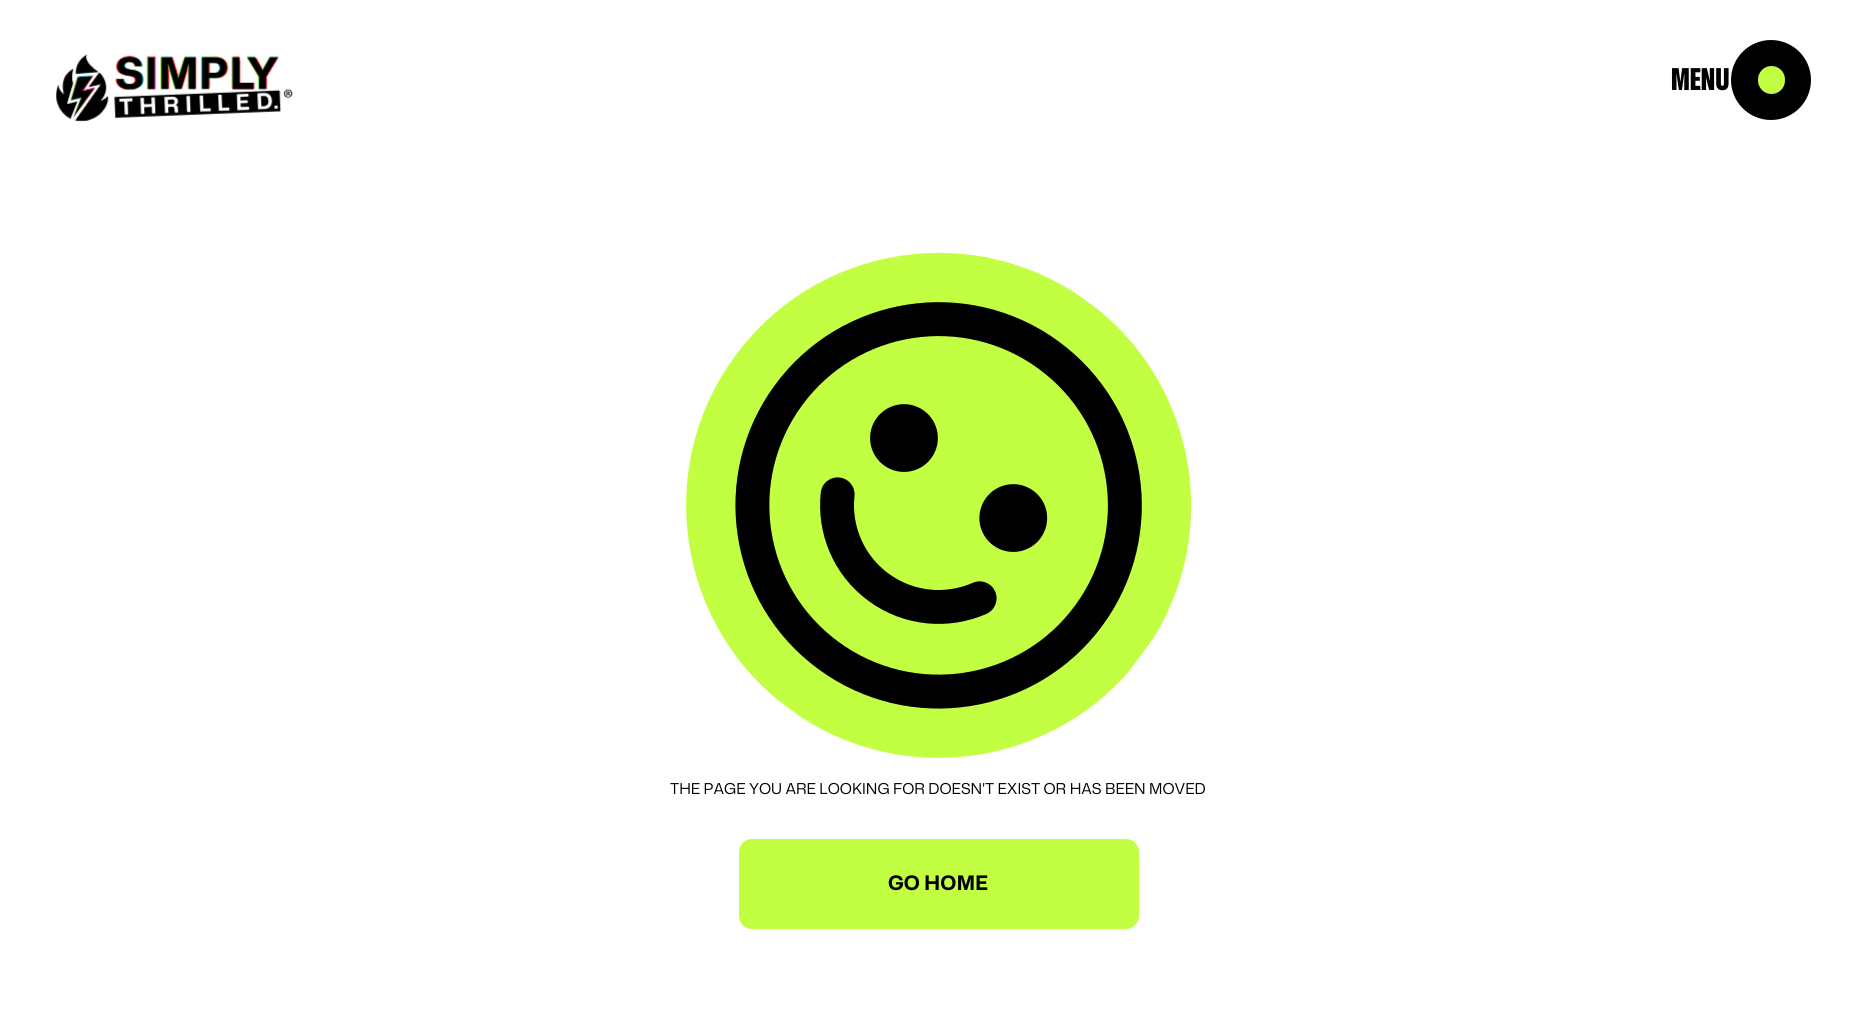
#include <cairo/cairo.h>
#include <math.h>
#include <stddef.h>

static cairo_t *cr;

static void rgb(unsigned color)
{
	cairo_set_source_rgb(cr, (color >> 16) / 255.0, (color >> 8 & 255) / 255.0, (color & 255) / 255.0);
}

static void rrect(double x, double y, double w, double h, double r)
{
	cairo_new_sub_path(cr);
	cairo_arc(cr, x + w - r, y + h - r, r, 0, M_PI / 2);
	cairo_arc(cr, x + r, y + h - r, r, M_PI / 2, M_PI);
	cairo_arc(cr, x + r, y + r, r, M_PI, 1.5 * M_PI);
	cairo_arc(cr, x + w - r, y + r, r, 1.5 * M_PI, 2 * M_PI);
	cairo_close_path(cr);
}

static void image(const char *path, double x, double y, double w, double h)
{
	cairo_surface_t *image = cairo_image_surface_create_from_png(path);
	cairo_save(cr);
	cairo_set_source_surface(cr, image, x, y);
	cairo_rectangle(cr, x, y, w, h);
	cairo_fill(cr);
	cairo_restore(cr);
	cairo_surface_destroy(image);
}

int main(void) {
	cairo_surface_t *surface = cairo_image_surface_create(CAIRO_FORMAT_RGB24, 1876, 1009);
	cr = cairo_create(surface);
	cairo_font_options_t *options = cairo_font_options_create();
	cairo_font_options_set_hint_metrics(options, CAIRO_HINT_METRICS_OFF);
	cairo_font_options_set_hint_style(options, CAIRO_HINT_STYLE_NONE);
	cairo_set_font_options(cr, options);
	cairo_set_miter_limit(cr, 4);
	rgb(0xffffff);
	cairo_paint(cr);
	image("img/1.png", 56, 54, 237, 68);
	rgb(0x000000);
	cairo_arc(cr, 1771, 80, 40, 0, 2 * M_PI);
	cairo_fill(cr);
	rgb(0xc2ff42);
	rrect(1758, 66, 27, 28, 13.5);
	cairo_fill(cr);
	image("img/2.png", 686, 252, 506, 506);
	rrect(739, 839, 400, 90, 13);
	cairo_fill(cr);
	cairo_select_font_face(cr, "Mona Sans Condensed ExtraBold", CAIRO_FONT_SLANT_NORMAL, CAIRO_FONT_WEIGHT_NORMAL);
	cairo_set_font_size(cr, 30);
	rgb(0x000000);
	cairo_move_to(cr, 1671, 90);
	cairo_show_text(cr, "MENU");
	cairo_select_font_face(cr, "Mona Sans", CAIRO_FONT_SLANT_NORMAL, CAIRO_FONT_WEIGHT_NORMAL);
	cairo_set_font_size(cr, 15);
	cairo_move_to(cr, 670, 794);
	cairo_show_text(cr, "THE PAGE YOU ARE LOOKING FOR DOESN'T EXIST OR HAS BEEN MOVED");
	cairo_select_font_face(cr, "Mona Sans", CAIRO_FONT_SLANT_NORMAL, CAIRO_FONT_WEIGHT_BOLD);
	cairo_set_font_size(cr, 20);
	cairo_move_to(cr, 888, 890);
	cairo_show_text(cr, "GO HOME");
	cairo_surface_write_to_png(surface, "page.png");
	cairo_font_options_destroy(options);
	cairo_destroy(cr);
	cairo_surface_destroy(surface);
	return 0;
}
